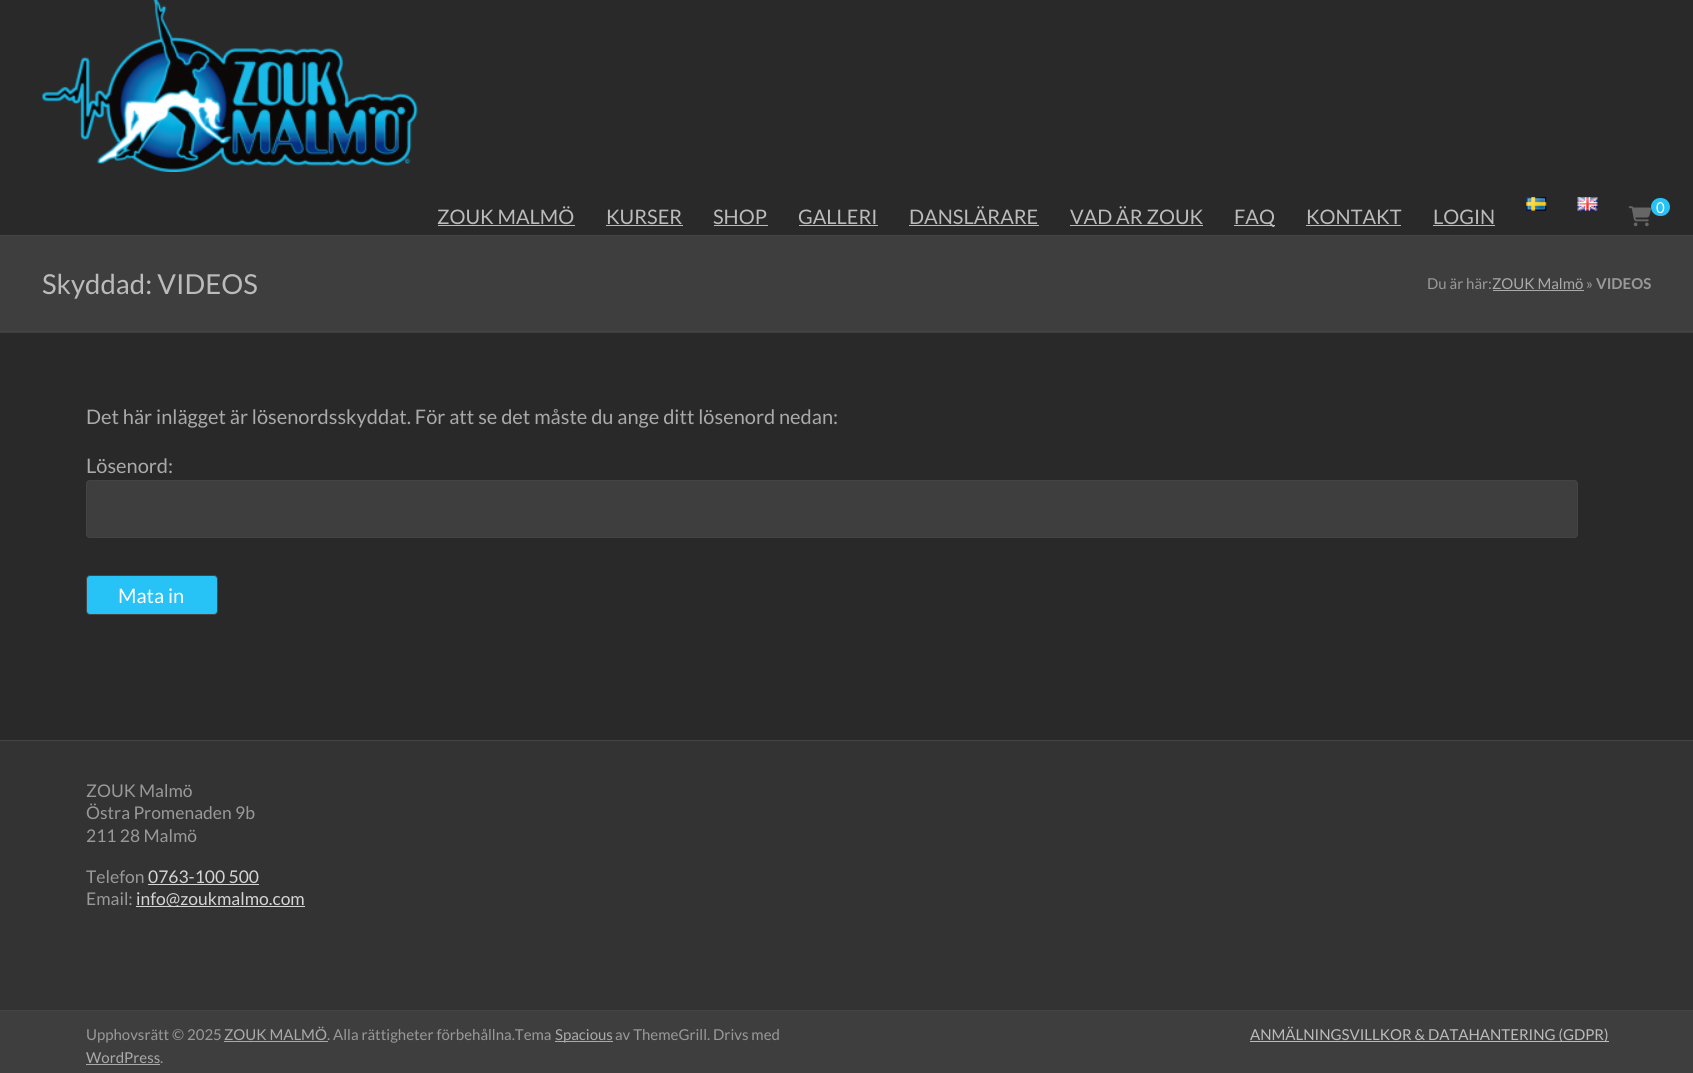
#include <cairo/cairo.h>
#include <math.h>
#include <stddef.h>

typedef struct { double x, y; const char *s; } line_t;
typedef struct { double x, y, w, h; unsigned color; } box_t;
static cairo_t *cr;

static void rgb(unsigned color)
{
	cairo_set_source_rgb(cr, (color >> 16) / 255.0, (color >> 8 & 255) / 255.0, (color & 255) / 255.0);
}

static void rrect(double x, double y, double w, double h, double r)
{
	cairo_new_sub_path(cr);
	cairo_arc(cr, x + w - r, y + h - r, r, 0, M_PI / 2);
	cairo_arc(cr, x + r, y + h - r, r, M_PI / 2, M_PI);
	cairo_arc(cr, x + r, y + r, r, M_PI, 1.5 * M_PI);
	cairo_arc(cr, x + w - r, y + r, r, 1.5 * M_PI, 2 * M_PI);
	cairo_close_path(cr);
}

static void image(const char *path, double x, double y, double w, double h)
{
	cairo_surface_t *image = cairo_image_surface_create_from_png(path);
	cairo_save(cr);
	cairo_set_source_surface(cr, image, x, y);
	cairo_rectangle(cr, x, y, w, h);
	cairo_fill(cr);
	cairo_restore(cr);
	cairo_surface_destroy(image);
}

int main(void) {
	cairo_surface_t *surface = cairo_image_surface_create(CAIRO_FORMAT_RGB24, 1693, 1073);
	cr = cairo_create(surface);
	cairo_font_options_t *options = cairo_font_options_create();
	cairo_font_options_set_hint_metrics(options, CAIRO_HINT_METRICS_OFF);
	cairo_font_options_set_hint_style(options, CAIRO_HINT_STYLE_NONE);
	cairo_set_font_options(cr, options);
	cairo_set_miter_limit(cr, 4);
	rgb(0x292929);
	cairo_paint(cr);
	rgb(0x444444);
	cairo_rectangle(cr, 0, 235, 1693, 1);
	cairo_fill(cr);
	image("img/1.png", 42, 0, 376, 172);
	image("img/2.png", 1526, 197, 21, 14);
	image("img/3.png", 1577, 197, 21, 14);
	{
		static const box_t items[] = {
			{438, 225, 137, 1, 0xbbbbbb},
			{606, 225, 77, 1, 0xbbbbbb},
			{714, 225, 54, 1, 0xbbbbbb},
			{799, 225, 79, 1, 0xbbbbbb},
			{909, 225, 130, 1, 0xbbbbbb},
			{1070, 225, 133, 1, 0xbbbbbb},
			{1234, 225, 41, 1, 0xbbbbbb},
			{1306, 225, 95, 1, 0xbbbbbb},
			{1433, 225, 62, 1, 0xbbbbbb},
		};
		for (size_t i = 0; i < sizeof items / sizeof *items; i++) {
			rgb(items[i].color);
			cairo_rectangle(cr, items[i].x, items[i].y, items[i].w, items[i].h);
			cairo_fill(cr);
		}
	}
	image("img/4.png", 1628, 206, 23, 21);
	rgb(0x27c3f7);
	rrect(1651, 198, 19, 18, 9);
	cairo_fill(cr);
	{
		static const box_t items[] = {
			{0, 236, 1693, 97, 0x3e3e3e},
			{0, 331, 1693, 1, 0x444444},
			{1493, 290, 91, 1, 0xaaaaaa},
		};
		for (size_t i = 0; i < sizeof items / sizeof *items; i++) {
			rgb(items[i].color);
			cairo_rectangle(cr, items[i].x, items[i].y, items[i].w, items[i].h);
			cairo_fill(cr);
		}
	}
	rgb(0x3e3e3e);
	rrect(86.5, 480.5, 1491, 57, 3.5);
	cairo_fill_preserve(cr);
	rgb(0x444444);
	cairo_set_line_width(cr, 1);
	cairo_stroke(cr);
	rgb(0x27c3f7);
	rrect(86.5, 575.5, 131, 39, 3.5);
	cairo_fill_preserve(cr);
	rgb(0x444444);
	cairo_stroke(cr);
	{
		static const box_t items[] = {
			{0, 741, 1693, 269, 0x333333},
			{0, 740, 1693, 1, 0x444444},
			{148, 884, 111, 1, 0xd5d5d5},
			{136, 906, 169, 1, 0xd5d5d5},
			{0, 1011, 1693, 62, 0x3e3e3e},
			{0, 1010, 1693, 1, 0x444444},
			{224, 1041, 104, 1, 0xaaaaaa},
			{555, 1041, 58, 1, 0xaaaaaa},
			{86, 1064, 74, 1, 0xaaaaaa},
			{1250, 1041, 359, 1, 0xbbbbbb},
		};
		for (size_t i = 0; i < sizeof items / sizeof *items; i++) {
			rgb(items[i].color);
			cairo_rectangle(cr, items[i].x, items[i].y, items[i].w, items[i].h);
			cairo_fill(cr);
		}
	}
	cairo_select_font_face(cr, "Lato", CAIRO_FONT_SLANT_NORMAL, CAIRO_FONT_WEIGHT_NORMAL);
	cairo_set_font_size(cr, 20);
	{
		static const line_t items[] = {
			{437, 224, "ZOUK MALMÖ"},
			{606, 224, "KURSER"},
			{713, 224, "SHOP"},
			{798, 224, "GALLERI"},
			{909, 224, "DANSLÄRARE"},
			{1070, 224, "VAD ÄR ZOUK"},
			{1234, 224, "FAQ"},
			{1306, 224, "KONTAKT"},
			{1433, 224, "LOGIN"},
		};
		for (size_t i = 0; i < sizeof items / sizeof *items; i++) {
			cairo_move_to(cr, items[i].x, items[i].y);
			cairo_show_text(cr, items[i].s);
		}
	}
	cairo_set_font_size(cr, 15);
	rgb(0xffffff);
	cairo_move_to(cr, 1656, 213);
	cairo_show_text(cr, "0");
	cairo_set_font_size(cr, 27.5);
	rgb(0xbbbbbb);
	cairo_move_to(cr, 42, 294);
	cairo_show_text(cr, "Skyddad: VIDEOS");
	cairo_set_font_size(cr, 15);
	rgb(0x999999);
	cairo_move_to(cr, 1427, 289);
	cairo_show_text(cr, "Du är här:");
	rgb(0xaaaaaa);
	cairo_move_to(cr, 1492, 289);
	cairo_show_text(cr, "ZOUK Malmö");
	rgb(0x999999);
	cairo_move_to(cr, 1586, 289);
	cairo_show_text(cr, "»");
	cairo_select_font_face(cr, "Lato", CAIRO_FONT_SLANT_NORMAL, CAIRO_FONT_WEIGHT_BOLD);
	cairo_move_to(cr, 1596, 289);
	cairo_show_text(cr, "VIDEOS");
	cairo_select_font_face(cr, "Lato", CAIRO_FONT_SLANT_NORMAL, CAIRO_FONT_WEIGHT_NORMAL);
	cairo_set_font_size(cr, 20);
	rgb(0xaaaaaa);
	cairo_move_to(cr, 86, 424);
	cairo_show_text(cr, "Det här inlägget är lösenordsskyddat. För att se det måste du ange ditt lösenord nedan:");
	cairo_move_to(cr, 86, 473);
	cairo_show_text(cr, "Lösenord:");
	rgb(0xffffff);
	cairo_move_to(cr, 118, 603);
	cairo_show_text(cr, "Mata in");
	cairo_set_font_size(cr, 17.5);
	rgb(0x999999);
	{
		static const line_t items[] = {
			{86, 797, "ZOUK Malmö"},
			{86, 819, "Östra Promenaden 9b"},
			{86, 842, "211 28 Malmö"},
			{86, 883, "Telefon"},
		};
		for (size_t i = 0; i < sizeof items / sizeof *items; i++) {
			cairo_move_to(cr, items[i].x, items[i].y);
			cairo_show_text(cr, items[i].s);
		}
	}
	rgb(0xd5d5d5);
	cairo_move_to(cr, 148, 883);
	cairo_show_text(cr, "0763-100 500");
	rgb(0x999999);
	cairo_move_to(cr, 86, 905);
	cairo_show_text(cr, "Email:");
	rgb(0xd5d5d5);
	cairo_move_to(cr, 136, 905);
	cairo_show_text(cr, "info@zoukmalmo.com");
	cairo_set_font_size(cr, 15);
	rgb(0x999999);
	cairo_move_to(cr, 86, 1040);
	cairo_show_text(cr, "Upphovsrätt © 2025");
	rgb(0xaaaaaa);
	cairo_move_to(cr, 224, 1040);
	cairo_show_text(cr, "ZOUK MALMÖ");
	rgb(0x999999);
	cairo_move_to(cr, 327, 1040);
	cairo_show_text(cr, ". Alla rättigheter förbehållna.Tema");
	rgb(0xaaaaaa);
	cairo_move_to(cr, 555, 1040);
	cairo_show_text(cr, "Spacious");
	rgb(0x999999);
	cairo_move_to(cr, 615, 1040);
	cairo_show_text(cr, "av ThemeGrill. Drivs med");
	rgb(0xaaaaaa);
	cairo_move_to(cr, 86, 1063);
	cairo_show_text(cr, "WordPress");
	rgb(0x999999);
	cairo_move_to(cr, 160, 1063);
	cairo_show_text(cr, ".");
	rgb(0xbbbbbb);
	cairo_move_to(cr, 1250, 1040);
	cairo_show_text(cr, "ANMÄLNINGSVILLKOR & DATAHANTERING (GDPR)");
	cairo_surface_write_to_png(surface, "page.png");
	cairo_font_options_destroy(options);
	cairo_destroy(cr);
	cairo_surface_destroy(surface);
	return 0;
}
